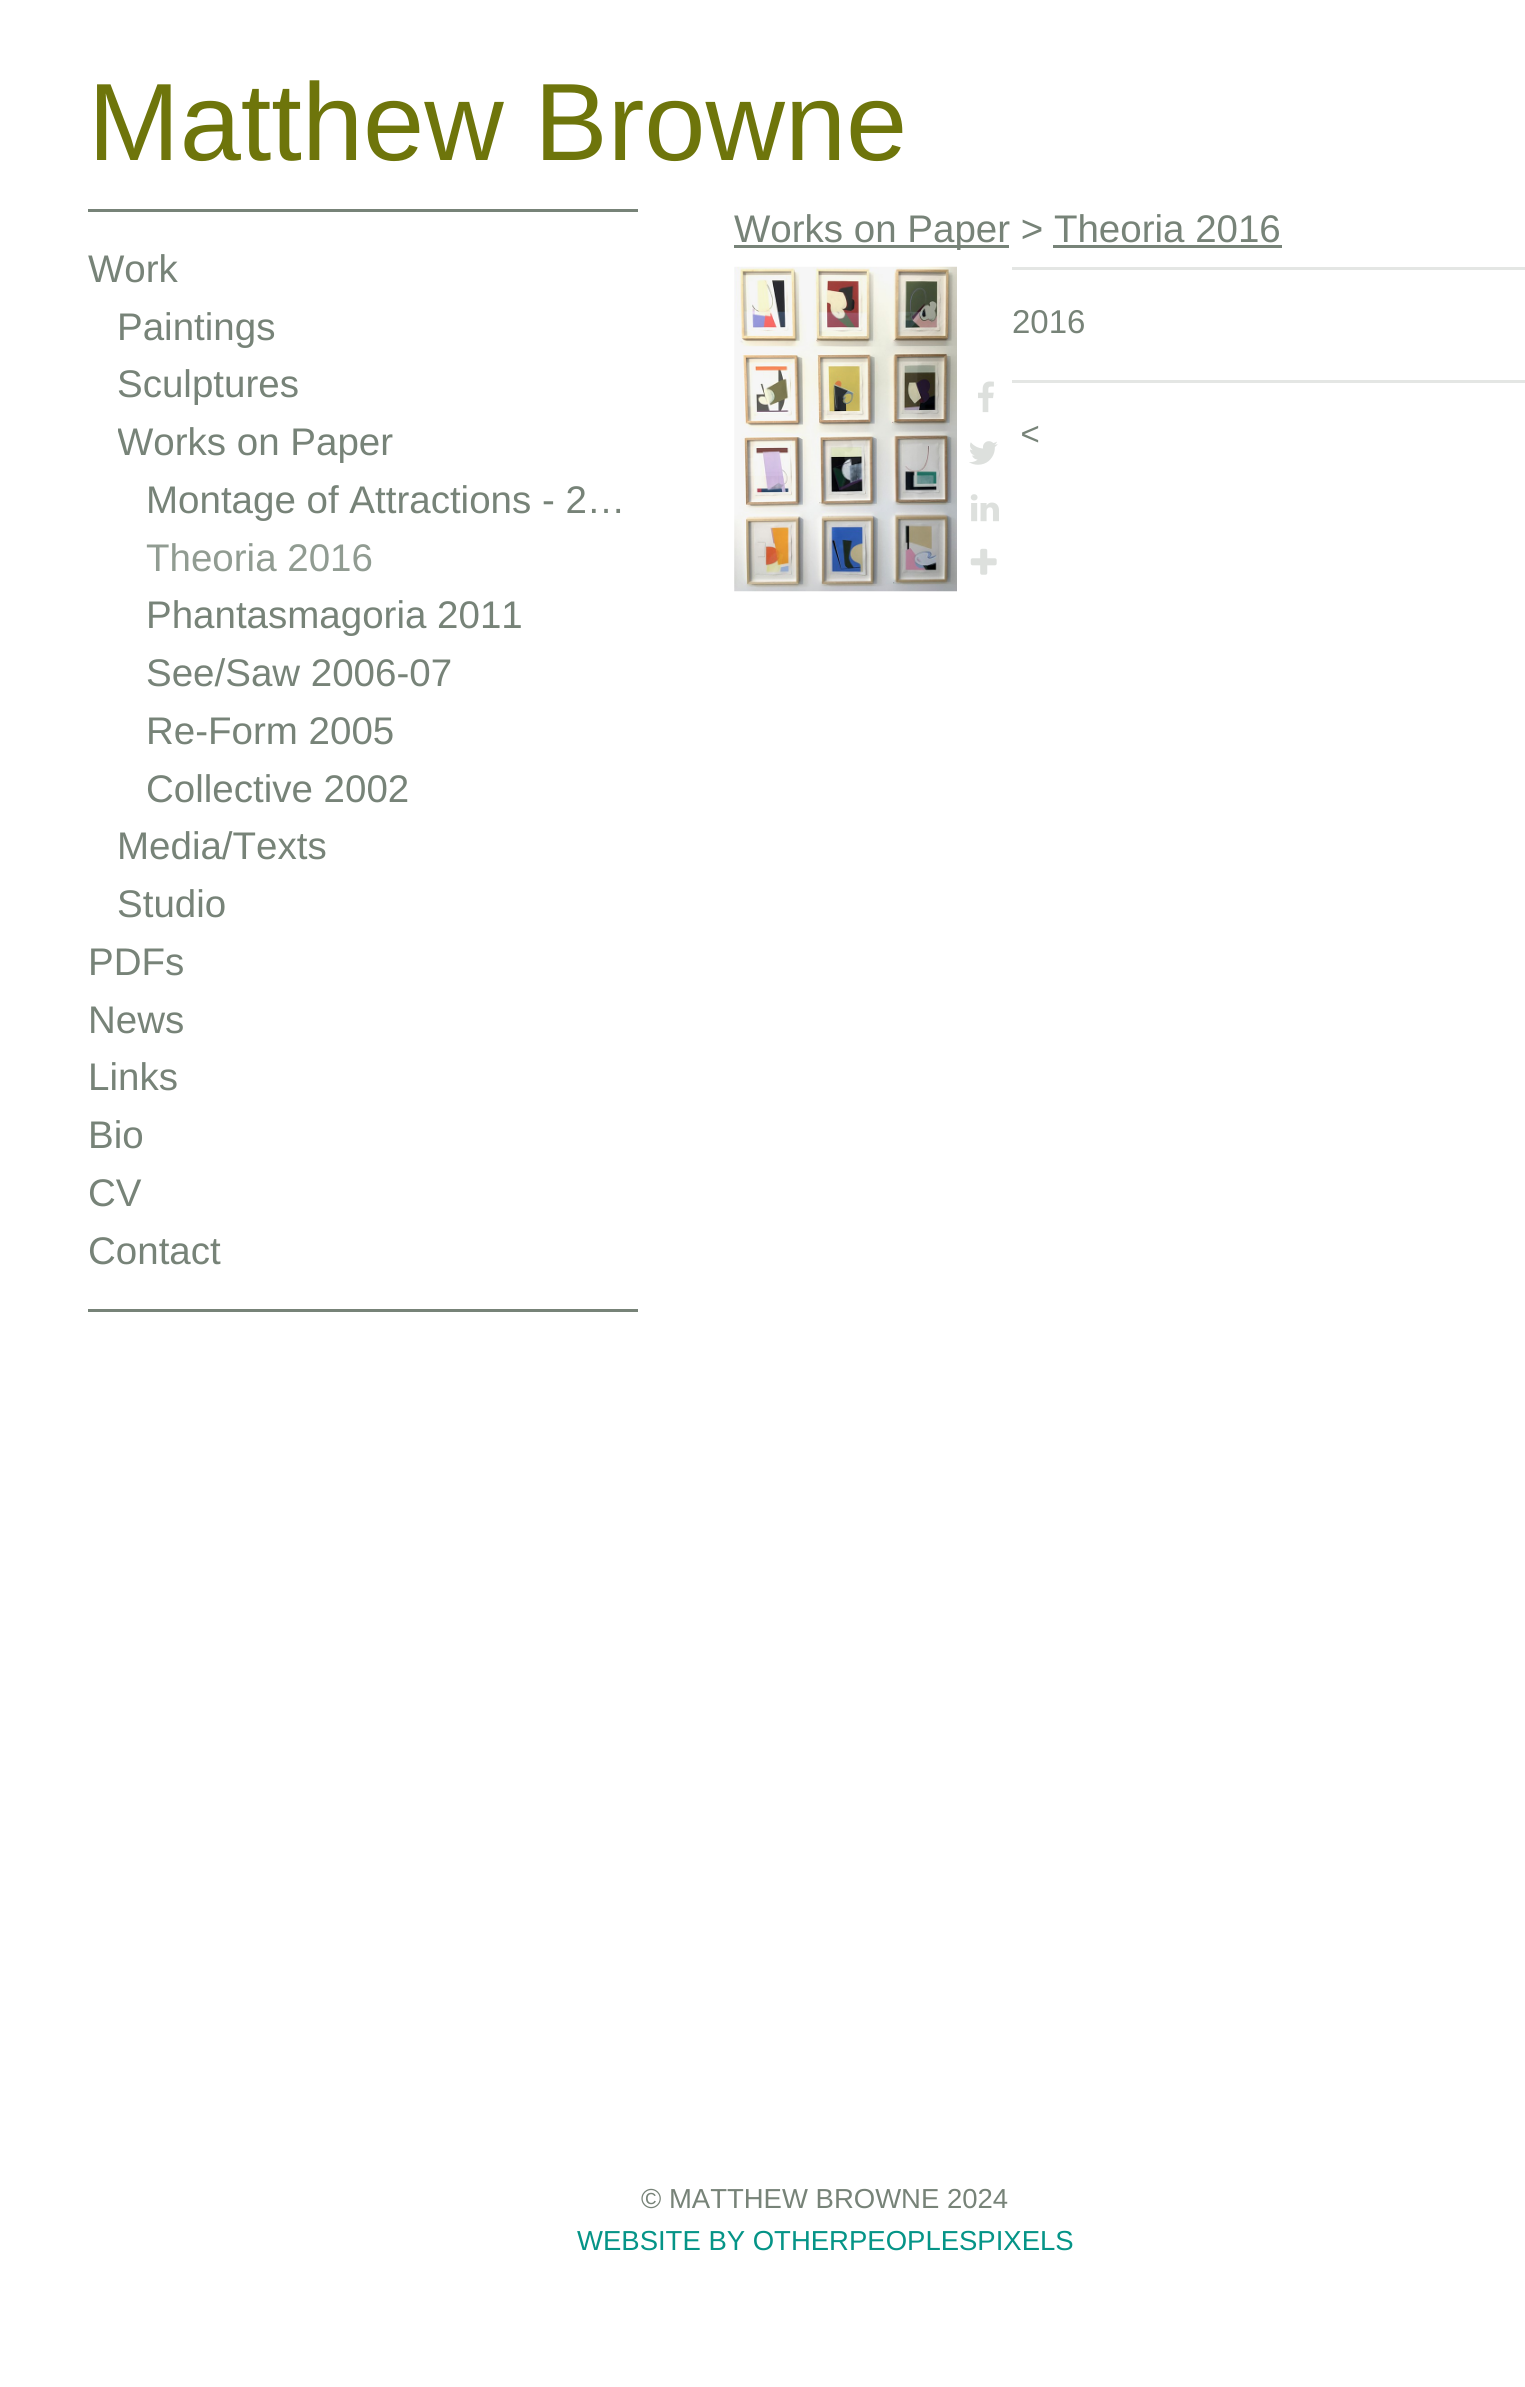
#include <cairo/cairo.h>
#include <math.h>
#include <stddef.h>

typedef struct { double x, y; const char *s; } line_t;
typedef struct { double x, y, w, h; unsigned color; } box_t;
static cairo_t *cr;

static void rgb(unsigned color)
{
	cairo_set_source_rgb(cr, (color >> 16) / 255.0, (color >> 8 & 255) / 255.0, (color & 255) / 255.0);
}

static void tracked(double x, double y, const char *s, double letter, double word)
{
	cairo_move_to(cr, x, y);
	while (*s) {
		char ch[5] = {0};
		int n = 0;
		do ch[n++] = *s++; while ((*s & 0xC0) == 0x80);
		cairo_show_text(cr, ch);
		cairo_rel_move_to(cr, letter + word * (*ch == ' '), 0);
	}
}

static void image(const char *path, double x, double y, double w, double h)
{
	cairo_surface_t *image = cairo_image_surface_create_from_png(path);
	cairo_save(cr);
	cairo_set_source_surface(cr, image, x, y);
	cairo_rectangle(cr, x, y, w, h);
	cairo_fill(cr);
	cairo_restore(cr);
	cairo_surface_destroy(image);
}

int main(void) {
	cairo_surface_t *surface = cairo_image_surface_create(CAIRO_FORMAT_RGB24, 1525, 2387);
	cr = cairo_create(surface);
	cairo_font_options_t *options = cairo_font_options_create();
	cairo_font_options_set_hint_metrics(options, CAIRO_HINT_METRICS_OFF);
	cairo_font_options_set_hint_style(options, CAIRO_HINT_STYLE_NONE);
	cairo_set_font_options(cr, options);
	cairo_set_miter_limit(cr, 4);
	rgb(0xffffff);
	cairo_paint(cr);
	{
		static const box_t items[] = {
			{88, 209, 550, 3, 0x778378},
			{88, 1309, 550, 3, 0x778378},
			{734, 245, 275, 3, 0x778378},
			{1053, 245, 229, 3, 0x778378},
		};
		for (size_t i = 0; i < sizeof items / sizeof *items; i++) {
			rgb(items[i].color);
			cairo_rectangle(cr, items[i].x, items[i].y, items[i].w, items[i].h);
			cairo_fill(cr);
		}
	}
	image("img/1.png", 734, 266, 223, 326);
	image("img/2.png", 978, 381, 16, 32);
	image("img/3.png", 969, 441, 29, 24);
	image("img/4.png", 970, 494, 29, 28);
	image("img/5.png", 970, 548, 27, 27);
	rgb(0xe4e6e4);
	cairo_rectangle(cr, 1012, 267, 513, 3);
	cairo_fill(cr);
	cairo_rectangle(cr, 1012, 380, 513, 3);
	cairo_fill(cr);
	cairo_select_font_face(cr, "Liberation Sans", CAIRO_FONT_SLANT_NORMAL, CAIRO_FONT_WEIGHT_NORMAL);
	cairo_set_font_size(cr, 110);
	rgb(0x6e750b);
	cairo_move_to(cr, 88, 160);
	cairo_show_text(cr, "Matthew Browne");
	cairo_set_font_size(cr, 38.5);
	rgb(0x778378);
	{
		static const line_t items[] = {
			{88, 282, "Work"},
			{117, 340, "Paintings"},
			{117, 397, "Sculptures"},
		};
		for (size_t i = 0; i < sizeof items / sizeof *items; i++) {
			cairo_move_to(cr, items[i].x, items[i].y);
			cairo_show_text(cr, items[i].s);
		}
	}
	cairo_save(cr);
	cairo_rectangle(cr, 118, 415, 520, 58);
	cairo_clip(cr);
	cairo_move_to(cr, 117, 455);
	cairo_show_text(cr, "Works on Paper");
	cairo_restore(cr);
	cairo_move_to(cr, 146, 513);
	cairo_show_text(cr, "Montage of Attractions - 2…");
	rgb(0x919c92);
	cairo_move_to(cr, 146, 571);
	cairo_show_text(cr, "Theoria 2016");
	rgb(0x778378);
	{
		static const line_t items[] = {
			{146, 628, "Phantasmagoria 2011"},
			{146, 686, "See/Saw 2006-07"},
			{146, 744, "Re-Form 2005"},
			{146, 802, "Collective 2002"},
			{117, 859, "Media/Texts"},
			{117, 917, "Studio"},
			{88, 975, "PDFs"},
			{88, 1033, "News"},
			{88, 1090, "Links"},
			{88, 1148, "Bio"},
			{88, 1206, "CV"},
			{88, 1264, "Contact"},
			{734, 242, "Works on Paper > Theoria 2016"},
		};
		for (size_t i = 0; i < sizeof items / sizeof *items; i++) {
			cairo_move_to(cr, items[i].x, items[i].y);
			cairo_show_text(cr, items[i].s);
		}
	}
	cairo_set_font_size(cr, 33);
	cairo_move_to(cr, 1012, 333);
	cairo_show_text(cr, "2016");
	cairo_select_font_face(cr, "Liberation Sans", CAIRO_FONT_SLANT_ITALIC, CAIRO_FONT_WEIGHT_NORMAL);
	tracked(1020, 445, "<", 3, 0);
	cairo_select_font_face(cr, "Liberation Sans", CAIRO_FONT_SLANT_NORMAL, CAIRO_FONT_WEIGHT_NORMAL);
	cairo_set_font_size(cr, 27.5);
	cairo_move_to(cr, 641, 2208);
	cairo_show_text(cr, "© MATTHEW BROWNE 2024");
	rgb(0x059487);
	cairo_move_to(cr, 577, 2250);
	cairo_show_text(cr, "WEBSITE BY OTHERPEOPLESPIXELS");
	cairo_surface_write_to_png(surface, "page.png");
	cairo_font_options_destroy(options);
	cairo_destroy(cr);
	cairo_surface_destroy(surface);
	return 0;
}
